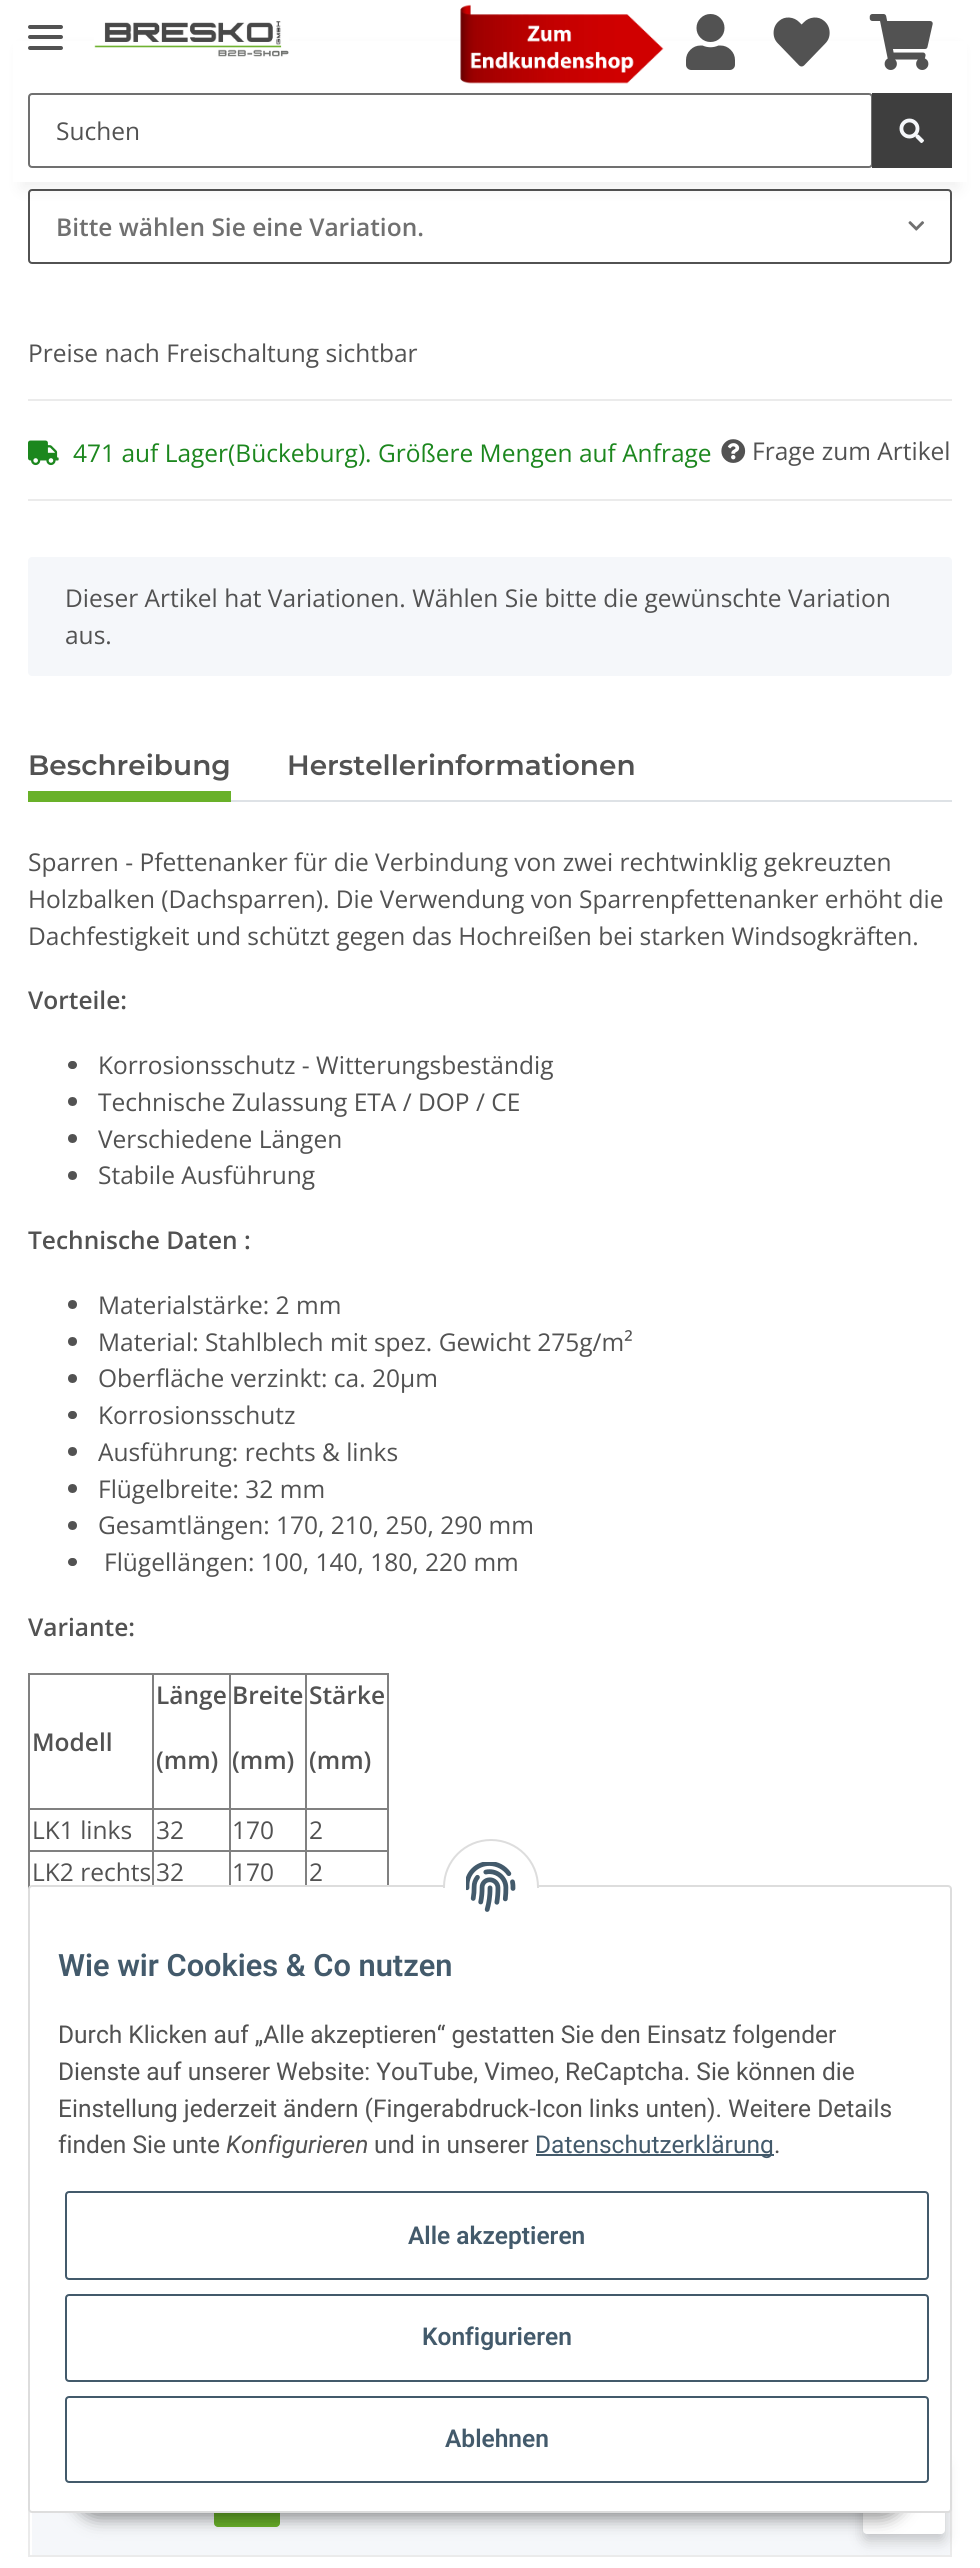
#include <cairo/cairo.h>
#include <math.h>
#include <stddef.h>

typedef struct { double x, y; const char *s; } line_t;
typedef struct { double x, y, w, h; unsigned color; } box_t;
static cairo_t *cr;

static void rgb(unsigned color)
{
	cairo_set_source_rgb(cr, (color >> 16) / 255.0, (color >> 8 & 255) / 255.0, (color & 255) / 255.0);
}

static void rrect(double x, double y, double w, double h, double r)
{
	cairo_new_sub_path(cr);
	cairo_arc(cr, x + w - r, y + h - r, r, 0, M_PI / 2);
	cairo_arc(cr, x + r, y + h - r, r, M_PI / 2, M_PI);
	cairo_arc(cr, x + r, y + r, r, M_PI, 1.5 * M_PI);
	cairo_arc(cr, x + w - r, y + r, r, 1.5 * M_PI, 2 * M_PI);
	cairo_close_path(cr);
}

static void soft_shadow(double x, double y, double w, double h, double r, double blur, double alpha)
{
	cairo_push_group_with_content(cr, CAIRO_CONTENT_ALPHA);
	cairo_set_operator(cr, CAIRO_OPERATOR_SOURCE);
	for (int i = 15; i >= -15 && fmin(w, h) + blur * i / 3 > 0; i -= 2) {
		double e = blur * i / 6;
		cairo_set_source_rgba(cr, 0, 0, 0, alpha * erfc((i - 1) / 8.5) / 2);
		rrect(x - e, y - e, w + 2 * e, h + 2 * e, fmax(0, fmin(r + e + blur * .6, fmin(w, h) / 2 + e)));
		cairo_fill(cr);
	}
	cairo_pattern_t *soft = cairo_pop_group(cr);
	cairo_mask(cr, soft);
	cairo_pattern_destroy(soft);
}

static void image(const char *path, double x, double y, double w, double h)
{
	cairo_surface_t *image = cairo_image_surface_create_from_png(path);
	cairo_save(cr);
	cairo_set_source_surface(cr, image, x, y);
	cairo_rectangle(cr, x, y, w, h);
	cairo_fill(cr);
	cairo_restore(cr);
	cairo_surface_destroy(image);
}

int main(void) {
	cairo_surface_t *surface = cairo_image_surface_create(CAIRO_FORMAT_RGB24, 980, 2568);
	cr = cairo_create(surface);
	cairo_font_options_t *options = cairo_font_options_create();
	cairo_font_options_set_hint_metrics(options, CAIRO_HINT_METRICS_OFF);
	cairo_font_options_set_hint_style(options, CAIRO_HINT_STYLE_NONE);
	cairo_set_font_options(cr, options);
	cairo_set_miter_limit(cr, 4);
	rgb(0xffffff);
	cairo_paint(cr);
	rrect(29, 190, 922, 73, 3);
	rgb(0x525252);
	cairo_stroke(cr);
	rgb(0x000000);
	soft_shadow(21, 49, 938, 140, 0, 8, 0.06);
	rgb(0xffffff);
	cairo_rectangle(cr, 13, 41, 954, 141);
	cairo_fill(cr);
	rgb(0x525252);
	rrect(28, 35, 35, 4, 2);
	cairo_fill(cr);
	rrect(28, 25, 35, 4, 2);
	cairo_fill(cr);
	rrect(28, 46, 35, 4, 2);
	cairo_fill(cr);
	image("img/1.png", 94, 21, 195, 36);
	image("img/2.png", 460, 4, 204, 80);
	image("img/3.png", 686, 14, 49, 56);
	image("img/4.png", 773, 17, 57, 50);
	image("img/5.png", 869, 14, 64, 56);
	rrect(29, 94, 843, 73, 3);
	rgb(0x707070);
	cairo_stroke(cr);
	rgb(0x3e3e3e);
	cairo_rectangle(cr, 872, 93, 80, 75);
	cairo_fill(cr);
	image("img/6.png", 899, 118, 25, 25);
	image("img/7.png", 908, 221, 17, 10);
	rgb(0xebebeb);
	cairo_rectangle(cr, 28, 399, 924, 2);
	cairo_fill(cr);
	cairo_rectangle(cr, 28, 499, 924, 2);
	cairo_fill(cr);
	image("img/8.png", 28, 440, 31, 26);
	image("img/9.png", 721, 439, 25, 24);
	rgb(0xf5f7fa);
	rrect(28, 557, 924, 119, 4);
	cairo_fill(cr);
	rgb(0xdee2e6);
	cairo_rectangle(cr, 231, 800, 721, 2);
	cairo_fill(cr);
	rgb(0x69b129);
	cairo_rectangle(cr, 28, 791, 203, 11);
	cairo_fill(cr);
	rgb(0x525252);
	rrect(68, 1061, 9, 8, 4);
	cairo_fill(cr);
	cairo_arc(cr, 72.5, 1101.5, 4.5, 0, 2 * M_PI);
	cairo_fill(cr);
	cairo_arc(cr, 72.5, 1138.5, 4.5, 0, 2 * M_PI);
	cairo_fill(cr);
	cairo_arc(cr, 72.5, 1175.5, 4.5, 0, 2 * M_PI);
	cairo_fill(cr);
	cairo_arc(cr, 72.5, 1304.5, 4.5, 0, 2 * M_PI);
	cairo_fill(cr);
	cairo_arc(cr, 72.5, 1341.5, 4.5, 0, 2 * M_PI);
	cairo_fill(cr);
	cairo_arc(cr, 72.5, 1378.5, 4.5, 0, 2 * M_PI);
	cairo_fill(cr);
	rrect(68, 1411, 9, 8, 4);
	cairo_fill(cr);
	cairo_arc(cr, 72.5, 1451.5, 4.5, 0, 2 * M_PI);
	cairo_fill(cr);
	cairo_arc(cr, 72.5, 1488.5, 4.5, 0, 2 * M_PI);
	cairo_fill(cr);
	cairo_arc(cr, 72.5, 1525.5, 4.5, 0, 2 * M_PI);
	cairo_fill(cr);
	rrect(68, 1558, 9, 8, 4);
	cairo_fill(cr);
	{
		static const box_t items[] = {
			{28, 1673, 361, 2, 0x808080},
			{387, 1673, 2, 212, 0x808080},
			{28, 1673, 2, 216, 0x808080},
			{305, 1808, 84, 2, 0x808080},
			{305, 1850, 84, 2, 0x808080},
			{305, 1850, 2, 35, 0x808080},
			{229, 1850, 77, 2, 0x808080},
			{305, 1808, 2, 44, 0x808080},
			{229, 1808, 77, 2, 0x808080},
			{229, 1850, 2, 35, 0x808080},
			{152, 1850, 79, 2, 0x808080},
			{229, 1808, 2, 44, 0x808080},
			{152, 1808, 79, 2, 0x808080},
			{152, 1850, 2, 35, 0x808080},
			{28, 1850, 126, 2, 0x808080},
			{152, 1808, 2, 44, 0x808080},
			{28, 1808, 126, 2, 0x808080},
			{152, 1673, 2, 137, 0x808080},
			{229, 1673, 2, 137, 0x808080},
			{305, 1673, 2, 137, 0x808080},
			{32, 2512, 918, 43, 0xf5f7fa},
			{950, 2509, 2, 48, 0xebebeb},
			{28, 2555, 924, 2, 0xebebeb},
			{28, 2509, 2, 48, 0xebebeb},
		};
		for (size_t i = 0; i < sizeof items / sizeof *items; i++) {
			rgb(items[i].color);
			cairo_rectangle(cr, items[i].x, items[i].y, items[i].w, items[i].h);
			cairo_fill(cr);
		}
	}
	rgb(0x69b129);
	rrect(214, 2497, 66, 30, 4);
	cairo_fill(cr);
	rgb(0x000000);
	soft_shadow(863, 2464, 82, 77, 4, 7, 0.2);
	rgb(0xffffff);
	rrect(863, 2457, 82, 77, 4);
	cairo_fill(cr);
	rgb(0x000000);
	soft_shadow(75, 2462, 830, 56, 28, 9, 0.45);
	rgb(0xffffff);
	rrect(29, 1886, 922, 626, 3);
	cairo_fill_preserve(cr);
	rgb(0xdddddd);
	cairo_stroke(cr);
	rgb(0xffffff);
	rrect(444, 1840, 94, 95, 47);
	cairo_fill_preserve(cr);
	rgb(0xdddddd);
	cairo_stroke(cr);
	rgb(0xffffff);
	cairo_rectangle(cr, 443, 1888, 96, 48);
	cairo_fill(cr);
	image("img/10.png", 466, 1862, 50, 50);
	rgb(0x435a6b);
	cairo_rectangle(cr, 536, 2154, 238, 2);
	cairo_fill(cr);
	rrect(66, 2192, 862, 87, 3);
	cairo_stroke(cr);
	rrect(66, 2295, 862, 86, 3);
	cairo_stroke(cr);
	rrect(66, 2397, 862, 85, 3);
	cairo_stroke(cr);
	cairo_select_font_face(cr, "Open Sans", CAIRO_FONT_SLANT_NORMAL, CAIRO_FONT_WEIGHT_NORMAL);
	cairo_set_font_size(cr, 24.5);
	rgb(0x525252);
	cairo_move_to(cr, 56, 140);
	cairo_show_text(cr, "Suchen");
	cairo_select_font_face(cr, "Open Sans SemiBold", CAIRO_FONT_SLANT_NORMAL, CAIRO_FONT_WEIGHT_NORMAL);
	rgb(0x707070);
	cairo_move_to(cr, 56, 236);
	cairo_show_text(cr, "Bitte wählen Sie eine Variation.");
	cairo_select_font_face(cr, "Open Sans", CAIRO_FONT_SLANT_NORMAL, CAIRO_FONT_WEIGHT_NORMAL);
	rgb(0x525252);
	cairo_move_to(cr, 28, 362);
	cairo_show_text(cr, "Preise nach Freischaltung sichtbar");
	rgb(0x1c871e);
	cairo_move_to(cr, 73, 462);
	cairo_show_text(cr, "471 auf Lager(Bückeburg). Größere Mengen auf Anfrage");
	rgb(0x525252);
	{
		static const line_t items[] = {
			{752, 460, "Frage zum Artikel"},
			{65, 607, "Dieser Artikel hat Variationen. Wählen Sie bitte die gewünschte Variation"},
			{65, 644, "aus."},
		};
		for (size_t i = 0; i < sizeof items / sizeof *items; i++) {
			cairo_move_to(cr, items[i].x, items[i].y);
			cairo_show_text(cr, items[i].s);
		}
	}
	cairo_select_font_face(cr, "Montserrat SemiBold", CAIRO_FONT_SLANT_NORMAL, CAIRO_FONT_WEIGHT_NORMAL);
	cairo_set_font_size(cr, 28);
	cairo_move_to(cr, 28, 775);
	cairo_show_text(cr, "Beschreibung");
	cairo_move_to(cr, 287, 775);
	cairo_show_text(cr, "Herstellerinformationen");
	cairo_select_font_face(cr, "Open Sans", CAIRO_FONT_SLANT_NORMAL, CAIRO_FONT_WEIGHT_NORMAL);
	cairo_set_font_size(cr, 24.5);
	{
		static const line_t items[] = {
			{28, 871, "Sparren - Pfettenanker für die Verbindung von zwei rechtwinklig gekreuzten"},
			{28, 908, "Holzbalken (Dachsparren). Die Verwendung von Sparrenpfettenanker erhöht die"},
			{28, 945, "Dachfestigkeit und schützt gegen das Hochreißen bei starken Windsogkräften."},
		};
		for (size_t i = 0; i < sizeof items / sizeof *items; i++) {
			cairo_move_to(cr, items[i].x, items[i].y);
			cairo_show_text(cr, items[i].s);
		}
	}
	cairo_select_font_face(cr, "Open Sans SemiBold", CAIRO_FONT_SLANT_NORMAL, CAIRO_FONT_WEIGHT_NORMAL);
	cairo_move_to(cr, 28, 1009);
	cairo_show_text(cr, "Vorteile:");
	cairo_select_font_face(cr, "Open Sans", CAIRO_FONT_SLANT_NORMAL, CAIRO_FONT_WEIGHT_NORMAL);
	{
		static const line_t items[] = {
			{98, 1074, "Korrosionsschutz - Witterungsbeständig"},
			{98, 1111, "Technische Zulassung ETA / DOP / CE"},
			{98, 1148, "Verschiedene Längen"},
			{98, 1184, "Stabile Ausführung"},
		};
		for (size_t i = 0; i < sizeof items / sizeof *items; i++) {
			cairo_move_to(cr, items[i].x, items[i].y);
			cairo_show_text(cr, items[i].s);
		}
	}
	cairo_select_font_face(cr, "Open Sans SemiBold", CAIRO_FONT_SLANT_NORMAL, CAIRO_FONT_WEIGHT_NORMAL);
	cairo_move_to(cr, 28, 1249);
	cairo_show_text(cr, "Technische Daten :");
	cairo_select_font_face(cr, "Open Sans", CAIRO_FONT_SLANT_NORMAL, CAIRO_FONT_WEIGHT_NORMAL);
	{
		static const line_t items[] = {
			{98, 1314, "Materialstärke: 2 mm"},
			{98, 1351, "Material: Stahlblech mit spez. Gewicht 275g/m²"},
			{98, 1387, "Oberfläche verzinkt: ca. 20µm"},
			{98, 1424, "Korrosionsschutz"},
			{98, 1461, "Ausführung: rechts & links"},
			{98, 1498, "Flügelbreite: 32 mm"},
			{98, 1534, "Gesamtlängen: 170, 210, 250, 290 mm"},
			{104, 1571, "Flügellängen: 100, 140, 180, 220 mm"},
		};
		for (size_t i = 0; i < sizeof items / sizeof *items; i++) {
			cairo_move_to(cr, items[i].x, items[i].y);
			cairo_show_text(cr, items[i].s);
		}
	}
	cairo_select_font_face(cr, "Open Sans SemiBold", CAIRO_FONT_SLANT_NORMAL, CAIRO_FONT_WEIGHT_NORMAL);
	{
		static const line_t items[] = {
			{28, 1636, "Variante:"},
			{32, 1751, "Modell"},
			{156, 1704, "Länge"},
			{156, 1769, "(mm)"},
			{232, 1704, "Breite"},
			{232, 1769, "(mm)"},
			{309, 1704, "Stärke"},
			{309, 1769, "(mm)"},
		};
		for (size_t i = 0; i < sizeof items / sizeof *items; i++) {
			cairo_move_to(cr, items[i].x, items[i].y);
			cairo_show_text(cr, items[i].s);
		}
	}
	cairo_select_font_face(cr, "Open Sans", CAIRO_FONT_SLANT_NORMAL, CAIRO_FONT_WEIGHT_NORMAL);
	{
		static const line_t items[] = {
			{32, 1839, "LK1 links"},
			{156, 1839, "32"},
			{232, 1839, "170"},
			{309, 1839, "2"},
			{32, 1881, "LK2 rechts"},
			{156, 1881, "32"},
			{232, 1881, "170"},
			{309, 1881, "2"},
		};
		for (size_t i = 0; i < sizeof items / sizeof *items; i++) {
			cairo_move_to(cr, items[i].x, items[i].y);
			cairo_show_text(cr, items[i].s);
		}
	}
	cairo_select_font_face(cr, "Roboto SemiBold", CAIRO_FONT_SLANT_NORMAL, CAIRO_FONT_WEIGHT_NORMAL);
	cairo_set_font_size(cr, 30.75);
	rgb(0x435a6b);
	cairo_move_to(cr, 58, 1976);
	cairo_show_text(cr, "Wie wir Cookies & Co nutzen");
	cairo_select_font_face(cr, "Roboto", CAIRO_FONT_SLANT_NORMAL, CAIRO_FONT_WEIGHT_NORMAL);
	cairo_set_font_size(cr, 24.5);
	rgb(0x525252);
	{
		static const line_t items[] = {
			{58, 2043, "Durch Klicken auf „Alle akzeptieren“ gestatten Sie den Einsatz folgender"},
			{58, 2080, "Dienste auf unserer Website: YouTube, Vimeo, ReCaptcha. Sie können die"},
			{58, 2117, "Einstellung jederzeit ändern (Fingerabdruck-Icon links unten). Weitere Details"},
			{58, 2153, "finden Sie unte"},
		};
		for (size_t i = 0; i < sizeof items / sizeof *items; i++) {
			cairo_move_to(cr, items[i].x, items[i].y);
			cairo_show_text(cr, items[i].s);
		}
	}
	cairo_select_font_face(cr, "Roboto", CAIRO_FONT_SLANT_ITALIC, CAIRO_FONT_WEIGHT_NORMAL);
	cairo_move_to(cr, 226, 2153);
	cairo_show_text(cr, "Konfigurieren");
	cairo_select_font_face(cr, "Roboto", CAIRO_FONT_SLANT_NORMAL, CAIRO_FONT_WEIGHT_NORMAL);
	cairo_move_to(cr, 374, 2153);
	cairo_show_text(cr, "und in unserer");
	rgb(0x435a6b);
	cairo_move_to(cr, 535, 2153);
	cairo_show_text(cr, "Datenschutzerklärung");
	rgb(0x525252);
	cairo_move_to(cr, 774, 2153);
	cairo_show_text(cr, ".");
	cairo_select_font_face(cr, "Roboto SemiBold", CAIRO_FONT_SLANT_NORMAL, CAIRO_FONT_WEIGHT_NORMAL);
	rgb(0x435a6b);
	{
		static const line_t items[] = {
			{408, 2244, "Alle akzeptieren"},
			{422, 2345, "Konfigurieren"},
			{445, 2447, "Ablehnen"},
		};
		for (size_t i = 0; i < sizeof items / sizeof *items; i++) {
			cairo_move_to(cr, items[i].x, items[i].y);
			cairo_show_text(cr, items[i].s);
		}
	}
	cairo_surface_write_to_png(surface, "page.png");
	cairo_font_options_destroy(options);
	cairo_destroy(cr);
	cairo_surface_destroy(surface);
	return 0;
}
